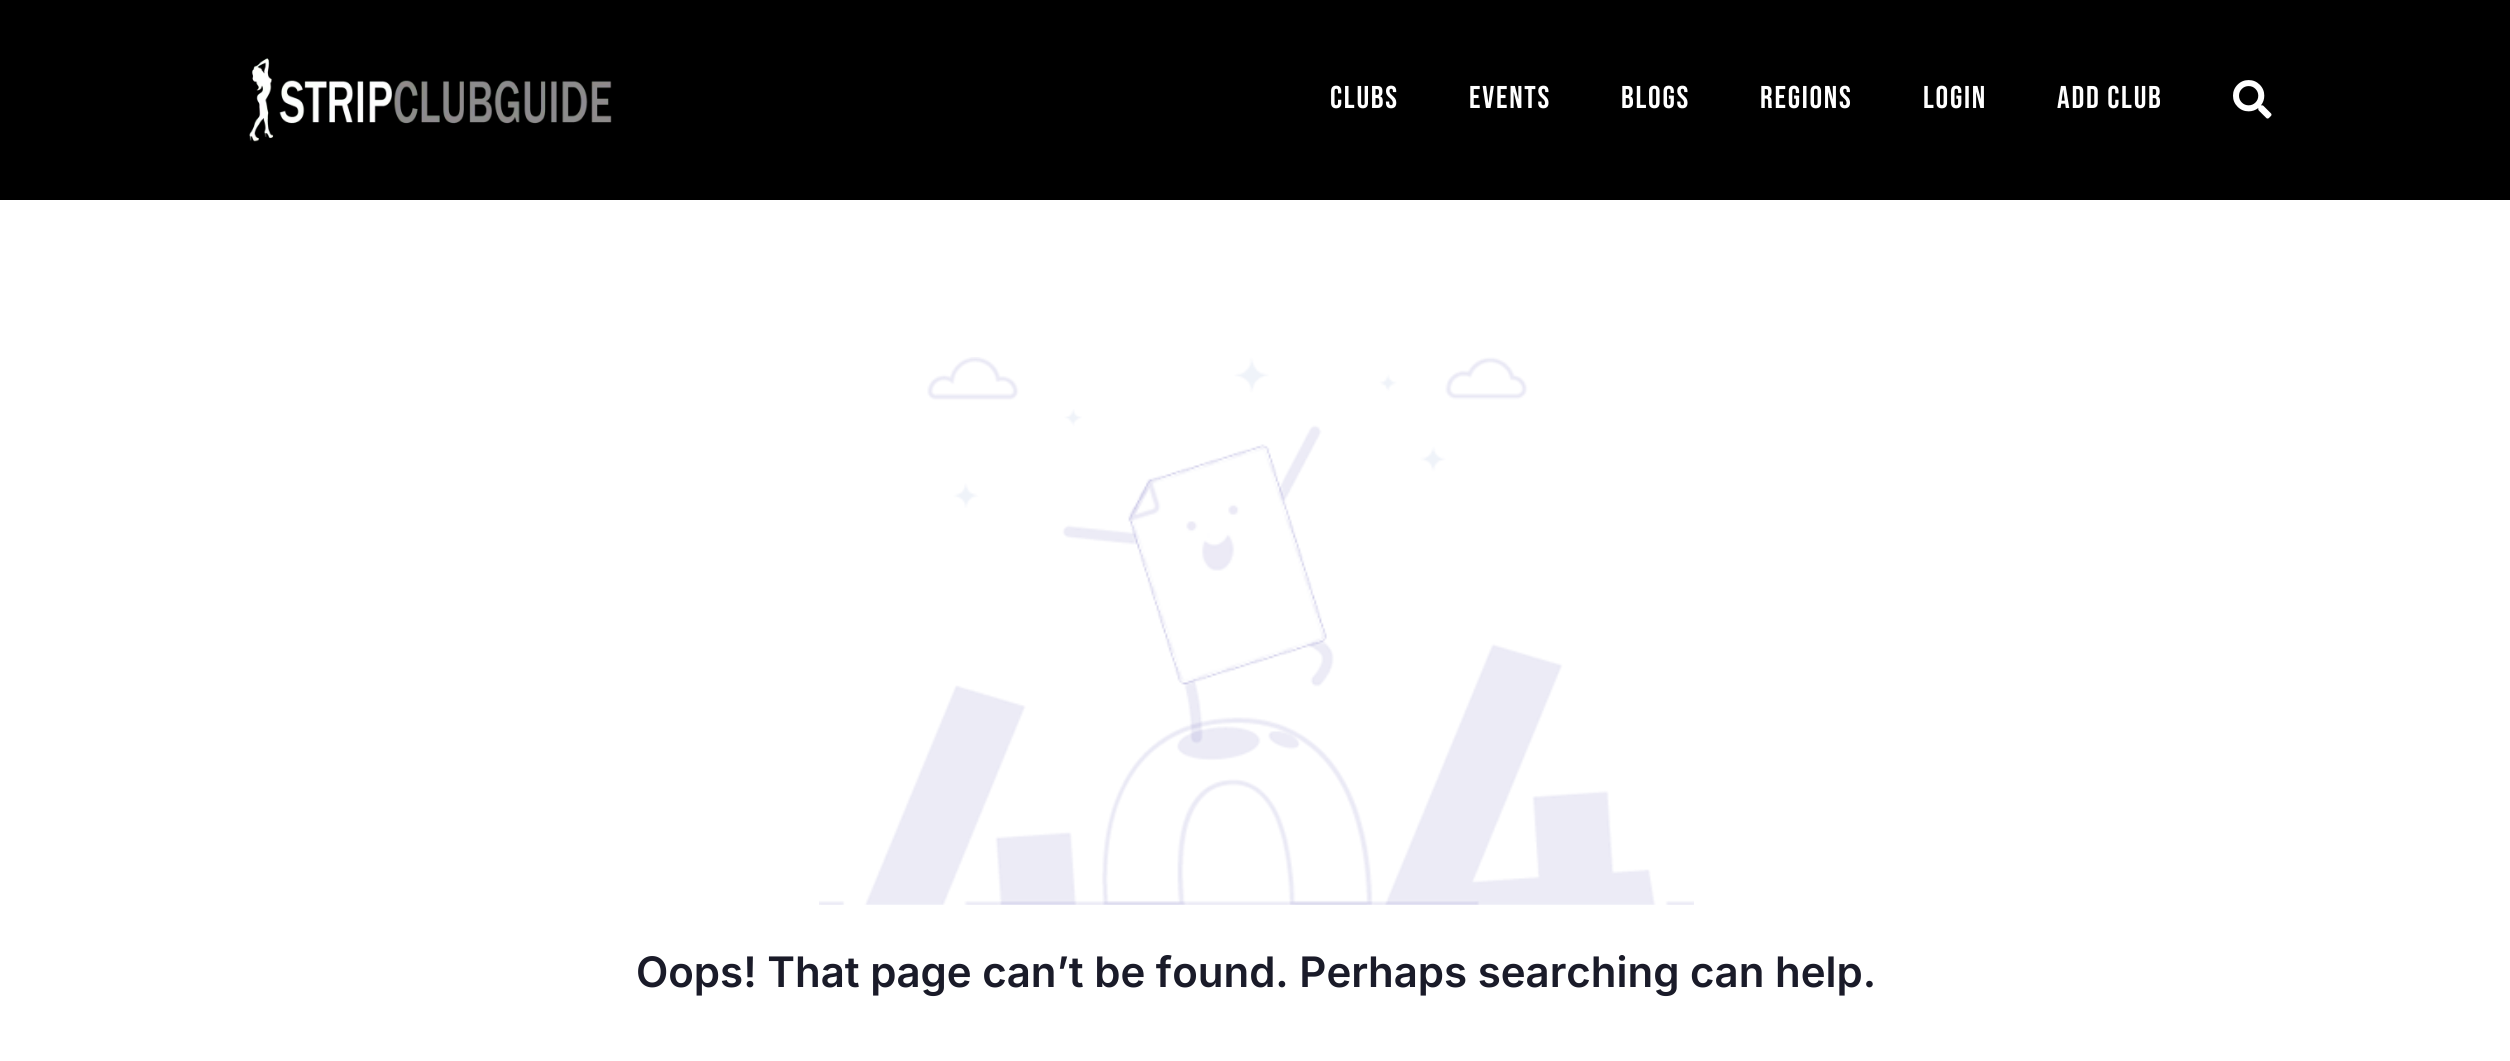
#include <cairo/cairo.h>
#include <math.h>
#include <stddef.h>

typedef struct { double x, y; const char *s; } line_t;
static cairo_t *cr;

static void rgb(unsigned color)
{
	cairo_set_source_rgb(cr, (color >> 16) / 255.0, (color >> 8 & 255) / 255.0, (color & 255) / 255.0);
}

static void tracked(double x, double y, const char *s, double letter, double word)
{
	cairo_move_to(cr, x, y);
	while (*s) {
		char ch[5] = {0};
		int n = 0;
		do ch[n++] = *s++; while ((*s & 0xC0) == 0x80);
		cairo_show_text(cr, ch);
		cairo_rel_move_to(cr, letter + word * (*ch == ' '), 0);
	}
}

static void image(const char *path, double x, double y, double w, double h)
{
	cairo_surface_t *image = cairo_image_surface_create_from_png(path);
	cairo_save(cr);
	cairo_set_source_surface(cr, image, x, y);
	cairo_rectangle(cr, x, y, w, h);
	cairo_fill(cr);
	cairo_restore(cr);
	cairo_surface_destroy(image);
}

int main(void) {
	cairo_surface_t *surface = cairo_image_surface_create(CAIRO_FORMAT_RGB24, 2510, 1061);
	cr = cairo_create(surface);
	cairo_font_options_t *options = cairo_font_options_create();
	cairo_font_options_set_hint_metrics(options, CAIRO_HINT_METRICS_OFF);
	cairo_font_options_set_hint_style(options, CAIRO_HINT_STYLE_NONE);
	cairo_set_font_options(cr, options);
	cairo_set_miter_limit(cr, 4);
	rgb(0xffffff);
	cairo_paint(cr);
	rgb(0x000000);
	cairo_rectangle(cr, 0, 0, 2510, 200);
	cairo_fill(cr);
	image("img/1.png", 249, 58, 363, 84);
	image("img/2.png", 2233, 80, 39, 39);
	image("img/3.png", 819, 357, 875, 548);
	cairo_select_font_face(cr, "Bebas Neue", CAIRO_FONT_SLANT_NORMAL, CAIRO_FONT_WEIGHT_NORMAL);
	cairo_set_font_size(cr, 31.5);
	rgb(0xffffff);
	{
		static const line_t items[] = {
			{1330, 108, "Clubs"},
			{1469, 108, "Events"},
			{1621, 108, "Blogs"},
			{1760, 108, "Regions"},
			{1923, 108, "Login"},
			{2057, 108, "Add Club"},
		};
		for (size_t i = 0; i < sizeof items / sizeof *items; i++) {
			tracked(items[i].x, items[i].y, items[i].s, 1.75, 0);
		}
	}
	cairo_select_font_face(cr, "Inter SemiBold", CAIRO_FONT_SLANT_NORMAL, CAIRO_FONT_WEIGHT_NORMAL);
	cairo_set_font_size(cr, 42);
	rgb(0x1a1b29);
	cairo_move_to(cr, 636, 987);
	cairo_show_text(cr, "Oops! That page can’t be found. Perhaps searching can help.");
	cairo_surface_write_to_png(surface, "page.png");
	cairo_font_options_destroy(options);
	cairo_destroy(cr);
	cairo_surface_destroy(surface);
	return 0;
}
